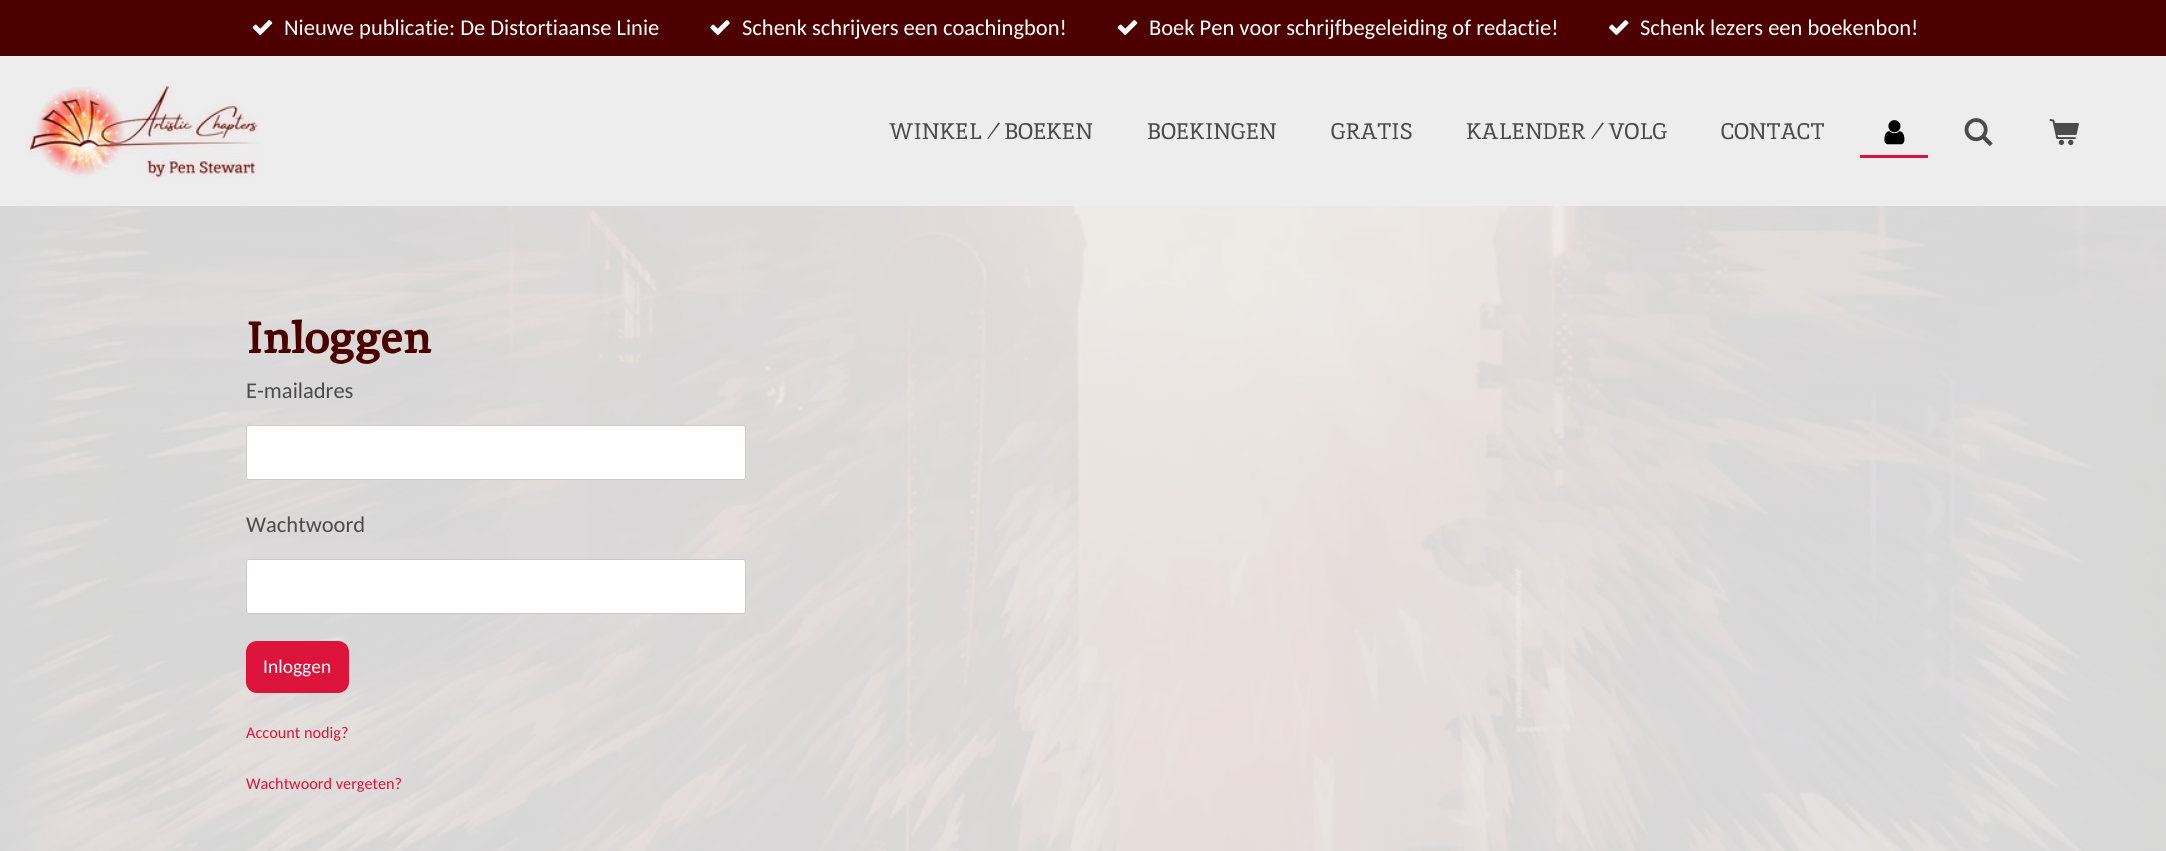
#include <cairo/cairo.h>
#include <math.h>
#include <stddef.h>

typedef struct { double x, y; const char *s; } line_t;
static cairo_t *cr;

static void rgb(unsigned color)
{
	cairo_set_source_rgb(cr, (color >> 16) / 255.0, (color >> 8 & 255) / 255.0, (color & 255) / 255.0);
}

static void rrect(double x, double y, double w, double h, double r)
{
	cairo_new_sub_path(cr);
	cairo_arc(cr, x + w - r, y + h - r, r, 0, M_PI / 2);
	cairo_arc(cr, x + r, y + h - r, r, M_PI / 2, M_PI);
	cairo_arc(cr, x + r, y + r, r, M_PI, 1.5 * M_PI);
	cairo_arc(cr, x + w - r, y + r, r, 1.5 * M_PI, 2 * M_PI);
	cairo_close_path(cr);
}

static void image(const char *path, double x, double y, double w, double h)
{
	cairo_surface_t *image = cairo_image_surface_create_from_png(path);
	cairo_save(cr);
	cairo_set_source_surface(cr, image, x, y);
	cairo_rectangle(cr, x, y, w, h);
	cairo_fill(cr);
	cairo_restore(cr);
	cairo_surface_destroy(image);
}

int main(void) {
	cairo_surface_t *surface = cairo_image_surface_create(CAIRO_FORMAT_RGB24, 2166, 851);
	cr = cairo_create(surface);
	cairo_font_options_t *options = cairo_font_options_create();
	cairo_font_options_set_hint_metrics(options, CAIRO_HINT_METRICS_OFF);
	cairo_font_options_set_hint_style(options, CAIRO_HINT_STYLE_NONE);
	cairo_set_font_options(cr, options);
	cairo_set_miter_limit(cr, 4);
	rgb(0xffffff);
	cairo_paint(cr);
	rgb(0x4d0000);
	cairo_rectangle(cr, 0, 0, 2166, 56);
	cairo_fill(cr);
	image("img/1.png", 252, 20, 21, 15);
	image("img/2.png", 710, 20, 20, 15);
	image("img/1.png", 1117, 20, 21, 15);
	image("img/3.png", 1609, 20, 20, 15);
	rgb(0xededed);
	cairo_rectangle(cr, 0, 56, 2166, 150);
	cairo_fill(cr);
	image("img/4.png", 26, 85, 233, 95);
	rgb(0xdc143c);
	cairo_new_path(cr);
	cairo_move_to(cr, 1860, 155);
	cairo_line_to(cr, 1860, 158);
	cairo_line_to(cr, 1928, 158);
	cairo_line_to(cr, 1928, 111);
	cairo_line_to(cr, 1928, 155);
	cairo_close_path(cr);
	cairo_fill(cr);
	image("img/5.png", 1884, 120, 21, 25);
	image("img/6.png", 1964, 118, 29, 29);
	image("img/7.png", 2049, 119, 30, 27);
	image("img/8.png", 0, 206, 2166, 645);
	cairo_set_source_rgba(cr, 0.929, 0.929, 0.929, 0.9);
	cairo_rectangle(cr, 0, 206, 2166, 645);
	cairo_fill(cr);
	rgb(0xffffff);
	rrect(246, 425, 500, 55, 2.5);
	cairo_fill(cr);
	rrect(246.5, 425.5, 499, 54, 2);
	cairo_set_source_rgba(cr, 0.58, 0.58, 0.58, 0.5);
	cairo_set_line_width(cr, 1);
	cairo_stroke(cr);
	rgb(0xffffff);
	rrect(246, 559, 500, 55, 2.5);
	cairo_fill(cr);
	rrect(246.5, 559.5, 499, 54, 2);
	cairo_set_source_rgba(cr, 0.58, 0.58, 0.58, 0.5);
	cairo_stroke(cr);
	rgb(0xdc143c);
	rrect(246, 641, 103, 52, 11);
	cairo_fill(cr);
	cairo_select_font_face(cr, "Carlito", CAIRO_FONT_SLANT_NORMAL, CAIRO_FONT_WEIGHT_NORMAL);
	cairo_set_font_size(cr, 22.5);
	rgb(0xffffff);
	{
		static const line_t items[] = {
			{284, 35, "Nieuwe publicatie: De Distortiaanse Linie"},
			{742, 35, "Schenk schrijvers een coachingbon!"},
			{1149, 35, "Boek Pen voor schrijfbegeleiding of redactie!"},
			{1640, 35, "Schenk lezers een boekenbon!"},
		};
		for (size_t i = 0; i < sizeof items / sizeof *items; i++) {
			cairo_move_to(cr, items[i].x, items[i].y);
			cairo_show_text(cr, items[i].s);
		}
	}
	cairo_select_font_face(cr, "Inika", CAIRO_FONT_SLANT_NORMAL, CAIRO_FONT_WEIGHT_NORMAL);
	rgb(0x4b4b4b);
	{
		static const line_t items[] = {
			{889, 139, "WINKEL ⁄ BOEKEN"},
			{1147, 139, "BOEKINGEN"},
			{1331, 139, "GRATIS"},
			{1466, 139, "KALENDER ⁄ VOLG"},
			{1721, 139, "CONTACT"},
		};
		for (size_t i = 0; i < sizeof items / sizeof *items; i++) {
			cairo_move_to(cr, items[i].x, items[i].y);
			cairo_show_text(cr, items[i].s);
		}
	}
	cairo_select_font_face(cr, "Inika", CAIRO_FONT_SLANT_NORMAL, CAIRO_FONT_WEIGHT_BOLD);
	cairo_set_font_size(cr, 45);
	rgb(0x4b0000);
	cairo_move_to(cr, 246, 353);
	cairo_show_text(cr, "Inloggen");
	cairo_select_font_face(cr, "Carlito", CAIRO_FONT_SLANT_NORMAL, CAIRO_FONT_WEIGHT_NORMAL);
	cairo_set_font_size(cr, 22.5);
	rgb(0x4b4b4b);
	cairo_move_to(cr, 246, 398);
	cairo_show_text(cr, "E-mailadres");
	cairo_move_to(cr, 246, 532);
	cairo_show_text(cr, "Wachtwoord");
	cairo_set_font_size(cr, 19.5);
	rgb(0xffffff);
	cairo_move_to(cr, 263, 673);
	cairo_show_text(cr, "Inloggen");
	cairo_set_font_size(cr, 16.25);
	rgb(0xdc143c);
	cairo_move_to(cr, 246, 738);
	cairo_show_text(cr, "Account nodig?");
	cairo_move_to(cr, 246, 789);
	cairo_show_text(cr, "Wachtwoord vergeten?");
	cairo_surface_write_to_png(surface, "page.png");
	cairo_font_options_destroy(options);
	cairo_destroy(cr);
	cairo_surface_destroy(surface);
	return 0;
}
